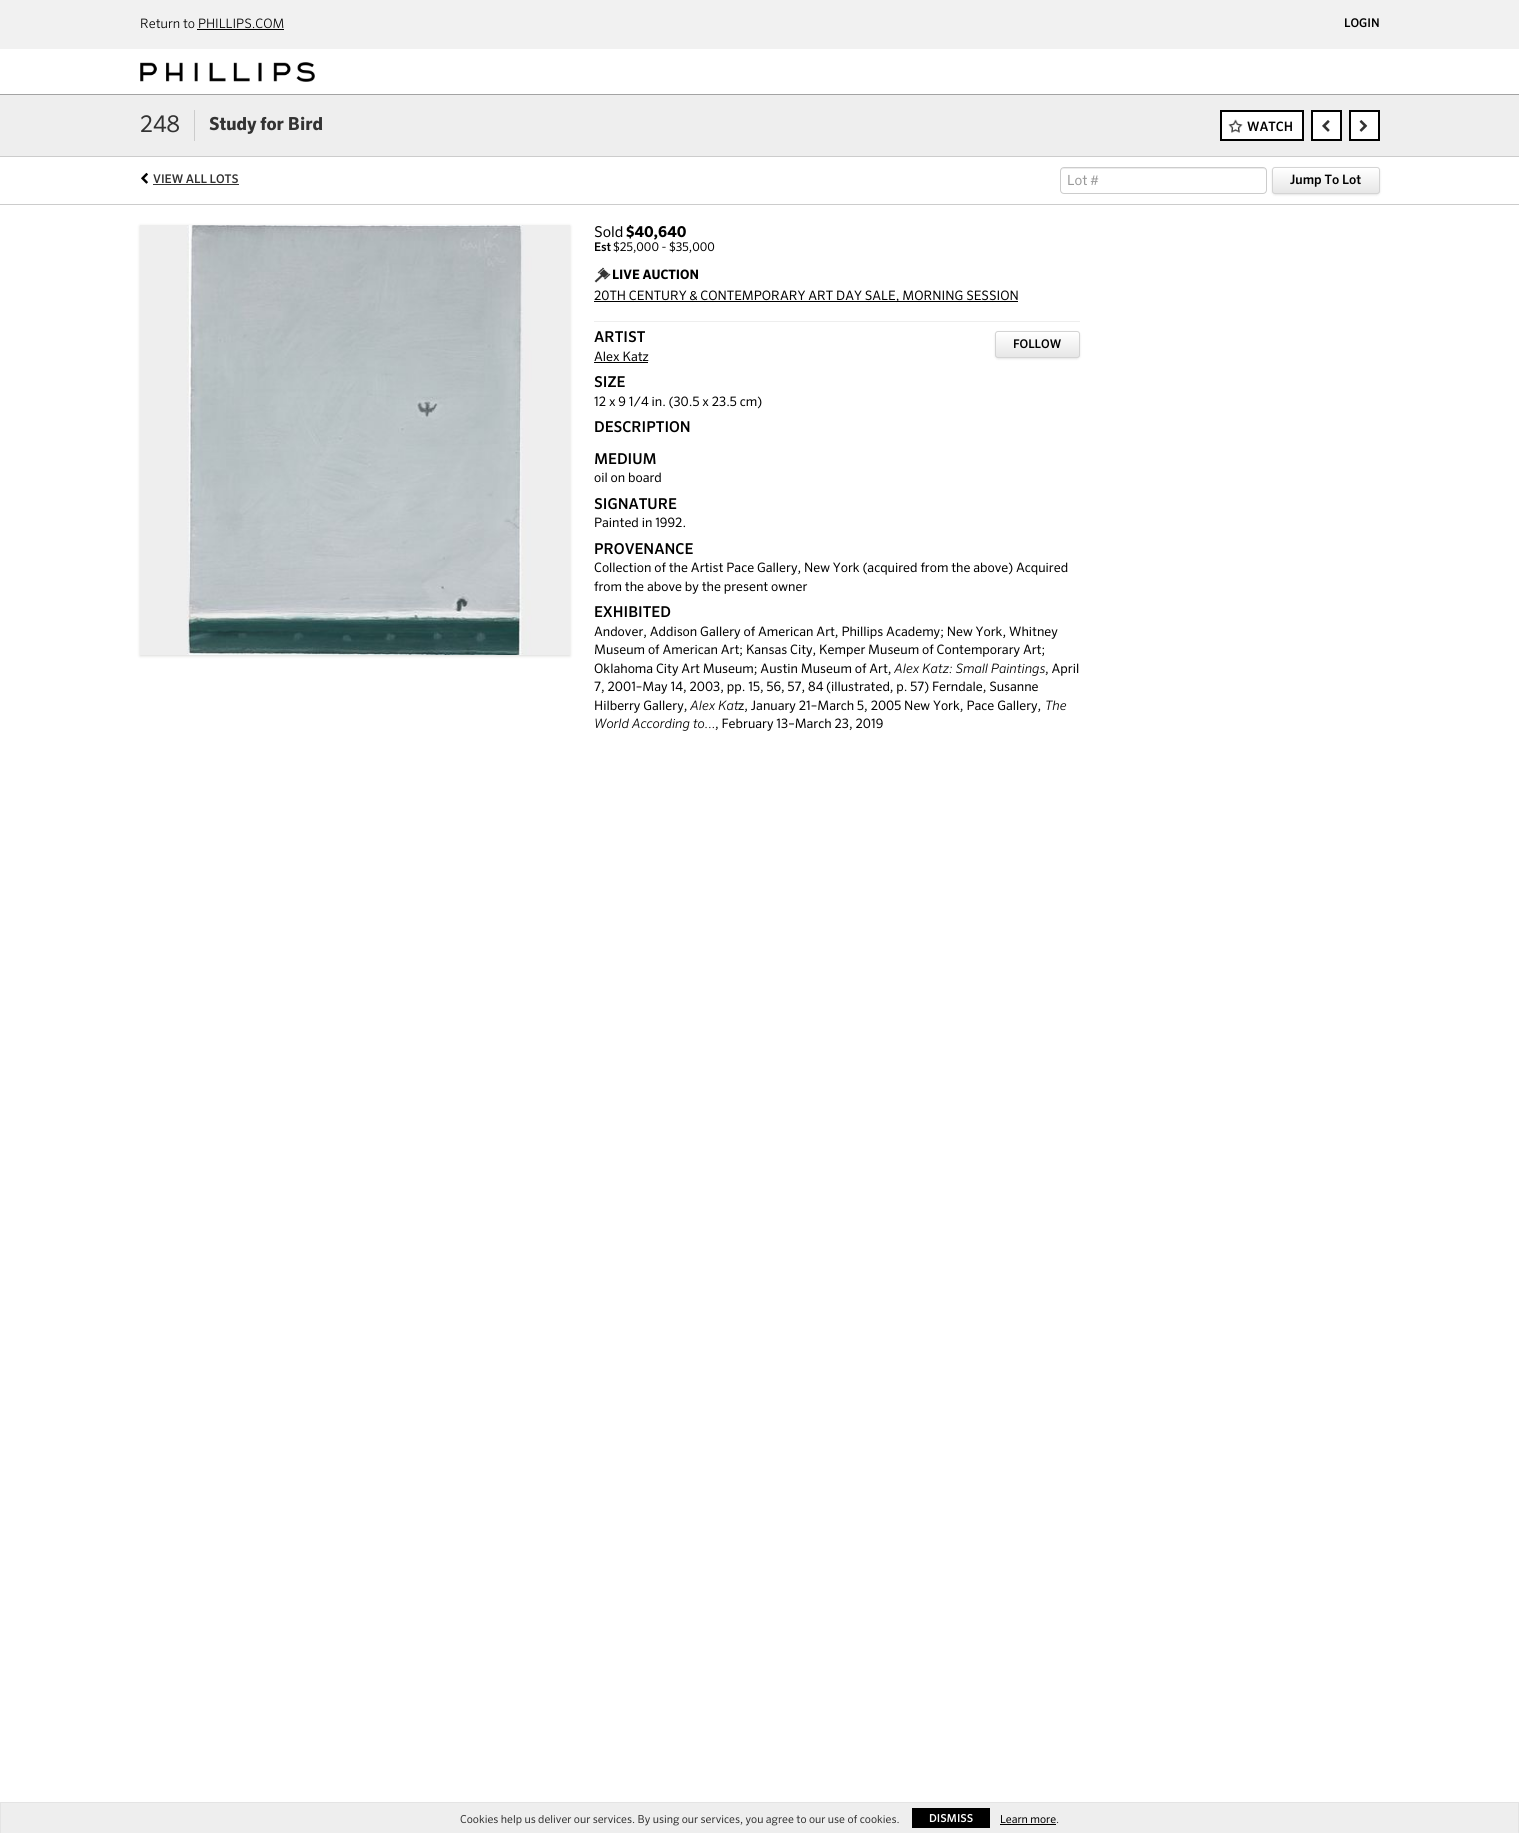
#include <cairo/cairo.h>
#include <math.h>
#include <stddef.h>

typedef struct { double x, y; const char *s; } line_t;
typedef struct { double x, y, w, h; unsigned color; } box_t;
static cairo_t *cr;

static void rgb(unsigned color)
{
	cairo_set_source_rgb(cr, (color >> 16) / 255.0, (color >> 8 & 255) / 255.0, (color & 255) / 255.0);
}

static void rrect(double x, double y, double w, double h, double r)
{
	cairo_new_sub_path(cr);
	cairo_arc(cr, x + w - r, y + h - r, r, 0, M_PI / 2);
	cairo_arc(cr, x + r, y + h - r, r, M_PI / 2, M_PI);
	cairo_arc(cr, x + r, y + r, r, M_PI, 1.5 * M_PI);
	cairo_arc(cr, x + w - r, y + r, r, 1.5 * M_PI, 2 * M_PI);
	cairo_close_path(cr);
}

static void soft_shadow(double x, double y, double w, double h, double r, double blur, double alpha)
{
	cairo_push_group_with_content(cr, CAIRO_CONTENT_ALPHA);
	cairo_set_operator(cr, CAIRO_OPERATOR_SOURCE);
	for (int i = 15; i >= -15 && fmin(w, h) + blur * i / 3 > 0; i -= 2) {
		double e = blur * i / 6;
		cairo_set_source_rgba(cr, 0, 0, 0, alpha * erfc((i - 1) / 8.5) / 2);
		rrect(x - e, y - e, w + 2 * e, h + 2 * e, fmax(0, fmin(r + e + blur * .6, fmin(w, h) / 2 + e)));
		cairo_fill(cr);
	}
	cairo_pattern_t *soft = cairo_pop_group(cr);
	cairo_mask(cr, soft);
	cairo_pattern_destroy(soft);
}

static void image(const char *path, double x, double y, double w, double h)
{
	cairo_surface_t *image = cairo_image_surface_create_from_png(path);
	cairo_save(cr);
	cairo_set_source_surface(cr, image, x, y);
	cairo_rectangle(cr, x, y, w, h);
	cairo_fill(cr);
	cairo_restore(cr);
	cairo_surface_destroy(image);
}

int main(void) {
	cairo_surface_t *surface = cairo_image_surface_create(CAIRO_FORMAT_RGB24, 1519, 1833);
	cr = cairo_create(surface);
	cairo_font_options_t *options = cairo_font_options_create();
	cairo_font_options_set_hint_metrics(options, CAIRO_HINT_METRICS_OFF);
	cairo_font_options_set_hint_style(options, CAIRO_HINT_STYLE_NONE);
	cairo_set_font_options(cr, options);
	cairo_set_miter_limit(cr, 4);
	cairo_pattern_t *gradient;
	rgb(0xffffff);
	cairo_paint(cr);
	{
		static const box_t items[] = {
			{0, 94, 1519, 1, 0xa3a3a3},
			{0, 0, 1519, 49, 0xf1f1f1},
			{197, 29, 87, 1, 0x000000},
		};
		for (size_t i = 0; i < sizeof items / sizeof *items; i++) {
			rgb(items[i].color);
			cairo_rectangle(cr, items[i].x, items[i].y, items[i].w, items[i].h);
			cairo_fill(cr);
		}
	}
	image("img/1.png", 140, 62, 175, 20);
	{
		static const box_t items[] = {
			{0, 95, 1519, 61, 0xeeeeee},
			{0, 156, 1519, 1, 0xcccccc},
			{194, 110, 1, 31, 0xcccccc},
		};
		for (size_t i = 0; i < sizeof items / sizeof *items; i++) {
			rgb(items[i].color);
			cairo_rectangle(cr, items[i].x, items[i].y, items[i].w, items[i].h);
			cairo_fill(cr);
		}
	}
	rgb(0xffffff);
	cairo_rectangle(cr, 1221, 111, 82, 29);
	cairo_fill_preserve(cr);
	rgb(0x000000);
	cairo_stroke(cr);
	image("img/2.png", 1228, 119, 15, 14);
	rgb(0xffffff);
	cairo_rectangle(cr, 1312, 111, 29, 29);
	cairo_fill_preserve(cr);
	rgb(0x000000);
	cairo_stroke(cr);
	image("img/3.png", 1322, 120, 8, 12);
	rgb(0xffffff);
	cairo_rectangle(cr, 1350, 111, 29, 29);
	cairo_fill_preserve(cr);
	rgb(0x000000);
	cairo_stroke(cr);
	image("img/4.png", 1359, 120, 9, 12);
	image("img/5.png", 141, 172, 7, 12);
	rgb(0x333333);
	cairo_rectangle(cr, 153, 184, 86, 1);
	cairo_fill(cr);
	rgb(0xececec);
	cairo_new_path(cr);
	cairo_move_to(cr, 1064, 169);
	cairo_line_to(cr, 1263, 169);
	cairo_curve_to(cr, 1265, 169, 1266, 170, 1266, 172);
	cairo_curve_to(cr, 1266, 170, 1265, 168, 1263, 168);
	cairo_line_to(cr, 1064, 168);
	cairo_curve_to(cr, 1062, 168, 1061, 170, 1061, 172);
	cairo_curve_to(cr, 1061, 170, 1062, 169, 1064, 169);
	cairo_close_path(cr);
	cairo_fill(cr);
	rrect(1060.5, 167.5, 206, 26, 3.5);
	rgb(0xcccccc);
	cairo_set_line_width(cr, 1);
	cairo_stroke(cr);
	rgb(0x000000);
	soft_shadow(1273, 169, 106, 25, 2, 1.5, 0.2);
	cairo_save(cr);
	rrect(1272, 167, 108, 27, 3);
	cairo_clip(cr);
	gradient = cairo_pattern_create_linear(1326, 168, 1326, 193);
	cairo_pattern_add_color_stop_rgba(gradient, 0, 1, 1, 1, 1);
	cairo_pattern_add_color_stop_rgba(gradient, 1, 0.902, 0.902, 0.902, 1);
	cairo_set_source(cr, gradient);
	cairo_pattern_destroy(gradient);
	cairo_rectangle(cr, 1272, 168, 108, 25);
	cairo_fill(cr);
	cairo_restore(cr);
	rrect(1272.5, 167.5, 107, 26, 2.5);
	rgb(0xd4d4d4);
	cairo_stroke(cr);
	rgb(0xcccccc);
	cairo_rectangle(cr, 0, 204, 1519, 1);
	cairo_fill(cr);
	rgb(0xdad9d7);
	soft_shadow(140, 226, 430, 430, 0, 1.5, 1);
	image("img/6.png", 140, 225, 430, 430);
	image("img/7.png", 594, 267, 17, 16);
	rgb(0x000000);
	cairo_rectangle(cr, 594, 301, 424, 1);
	cairo_fill(cr);
	rgb(0xeeeeee);
	cairo_rectangle(cr, 594, 321, 486, 1);
	cairo_fill(cr);
	rgb(0x000000);
	soft_shadow(996, 333, 83, 25, 2, 1.5, 0.2);
	cairo_save(cr);
	rrect(995, 331, 85, 27, 3);
	cairo_clip(cr);
	gradient = cairo_pattern_create_linear(1038, 332, 1038, 357);
	cairo_pattern_add_color_stop_rgba(gradient, 0, 1, 1, 1, 1);
	cairo_pattern_add_color_stop_rgba(gradient, 1, 0.902, 0.902, 0.902, 1);
	cairo_set_source(cr, gradient);
	cairo_pattern_destroy(gradient);
	cairo_rectangle(cr, 995, 332, 85, 25);
	cairo_fill(cr);
	cairo_restore(cr);
	cairo_set_source_rgba(cr, 1, 1, 1, 0.4);
	cairo_new_path(cr);
	cairo_move_to(cr, 998, 333);
	cairo_line_to(cr, 1077, 333);
	cairo_curve_to(cr, 1078, 333, 1079, 334, 1079, 335);
	cairo_curve_to(cr, 1079, 328, 1067, 332, 1064, 332);
	cairo_line_to(cr, 1011, 332);
	cairo_curve_to(cr, 1008, 332, 996, 328, 996, 335);
	cairo_curve_to(cr, 996, 334, 997, 333, 998, 333);
	cairo_close_path(cr);
	cairo_fill(cr);
	rrect(995.5, 331.5, 84, 26, 2.5);
	rgb(0xd4d4d4);
	cairo_stroke(cr);
	{
		static const box_t items[] = {
			{594, 362, 54, 1, 0x000000},
			{1, 1803, 1517, 30, 0xeeeeee},
			{0, 1802, 1519, 1, 0xe4e4e4},
			{1518, 1802, 1, 31, 0xe4e4e4},
			{0, 1802, 1, 31, 0xe4e4e4},
			{912, 1808, 78, 20, 0x000000},
			{1000, 1824, 56, 1, 0x000000},
		};
		for (size_t i = 0; i < sizeof items / sizeof *items; i++) {
			rgb(items[i].color);
			cairo_rectangle(cr, items[i].x, items[i].y, items[i].w, items[i].h);
			cairo_fill(cr);
		}
	}
	cairo_select_font_face(cr, "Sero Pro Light", CAIRO_FONT_SLANT_NORMAL, CAIRO_FONT_WEIGHT_NORMAL);
	cairo_set_font_size(cr, 13);
	cairo_move_to(cr, 140, 28);
	cairo_show_text(cr, "Return to PHILLIPS.COM");
	cairo_select_font_face(cr, "Sero Pro Medium", CAIRO_FONT_SLANT_NORMAL, CAIRO_FONT_WEIGHT_NORMAL);
	cairo_set_font_size(cr, 12);
	cairo_move_to(cr, 1344, 27);
	cairo_show_text(cr, "LOGIN");
	cairo_select_font_face(cr, "Sero Pro", CAIRO_FONT_SLANT_NORMAL, CAIRO_FONT_WEIGHT_NORMAL);
	cairo_set_font_size(cr, 23);
	rgb(0x333333);
	cairo_move_to(cr, 140, 132);
	cairo_show_text(cr, "248");
	cairo_select_font_face(cr, "Sero Pro", CAIRO_FONT_SLANT_NORMAL, CAIRO_FONT_WEIGHT_BOLD);
	cairo_set_font_size(cr, 18);
	cairo_move_to(cr, 209, 130);
	cairo_show_text(cr, "Study for Bird");
	cairo_select_font_face(cr, "Sero Pro Medium", CAIRO_FONT_SLANT_NORMAL, CAIRO_FONT_WEIGHT_NORMAL);
	cairo_set_font_size(cr, 13);
	rgb(0x000000);
	cairo_move_to(cr, 1247, 131);
	cairo_show_text(cr, "WATCH");
	cairo_set_font_size(cr, 12);
	rgb(0x333333);
	cairo_move_to(cr, 153, 183);
	cairo_show_text(cr, "VIEW ALL LOTS");
	cairo_select_font_face(cr, "Sero Pro", CAIRO_FONT_SLANT_NORMAL, CAIRO_FONT_WEIGHT_NORMAL);
	cairo_set_font_size(cr, 14);
	rgb(0x999999);
	cairo_move_to(cr, 1067, 185);
	cairo_show_text(cr, "Lot #");
	cairo_select_font_face(cr, "Sero Pro Medium", CAIRO_FONT_SLANT_NORMAL, CAIRO_FONT_WEIGHT_NORMAL);
	cairo_set_font_size(cr, 13);
	rgb(0x000000);
	cairo_move_to(cr, 1290, 184);
	cairo_show_text(cr, "Jump To Lot");
	cairo_select_font_face(cr, "Sero Pro", CAIRO_FONT_SLANT_NORMAL, CAIRO_FONT_WEIGHT_NORMAL);
	cairo_set_font_size(cr, 15);
	cairo_move_to(cr, 594, 237);
	cairo_show_text(cr, "Sold");
	cairo_select_font_face(cr, "Sero Pro", CAIRO_FONT_SLANT_NORMAL, CAIRO_FONT_WEIGHT_BOLD);
	cairo_move_to(cr, 626, 237);
	cairo_show_text(cr, "$40,640");
	cairo_select_font_face(cr, "Sero Pro Medium", CAIRO_FONT_SLANT_NORMAL, CAIRO_FONT_WEIGHT_NORMAL);
	cairo_set_font_size(cr, 12);
	cairo_move_to(cr, 594, 251);
	cairo_show_text(cr, "Est");
	cairo_select_font_face(cr, "Sero Pro", CAIRO_FONT_SLANT_NORMAL, CAIRO_FONT_WEIGHT_NORMAL);
	cairo_move_to(cr, 613, 251);
	cairo_show_text(cr, "$25,000 - $35,000");
	cairo_select_font_face(cr, "Sero Pro", CAIRO_FONT_SLANT_NORMAL, CAIRO_FONT_WEIGHT_BOLD);
	cairo_set_font_size(cr, 13);
	cairo_move_to(cr, 612, 279);
	cairo_show_text(cr, "LIVE AUCTION");
	cairo_select_font_face(cr, "Sero Pro", CAIRO_FONT_SLANT_NORMAL, CAIRO_FONT_WEIGHT_NORMAL);
	cairo_move_to(cr, 594, 300);
	cairo_show_text(cr, "20TH CENTURY & CONTEMPORARY ART DAY SALE, MORNING SESSION");
	cairo_select_font_face(cr, "Sero Pro Medium", CAIRO_FONT_SLANT_NORMAL, CAIRO_FONT_WEIGHT_NORMAL);
	cairo_set_font_size(cr, 15);
	cairo_move_to(cr, 594, 342);
	cairo_show_text(cr, "ARTIST");
	cairo_set_font_size(cr, 12);
	cairo_move_to(cr, 1013, 348);
	cairo_show_text(cr, "FOLLOW");
	cairo_select_font_face(cr, "Sero Pro", CAIRO_FONT_SLANT_NORMAL, CAIRO_FONT_WEIGHT_NORMAL);
	cairo_set_font_size(cr, 13);
	cairo_move_to(cr, 594, 361);
	cairo_show_text(cr, "Alex Katz");
	cairo_select_font_face(cr, "Sero Pro Medium", CAIRO_FONT_SLANT_NORMAL, CAIRO_FONT_WEIGHT_NORMAL);
	cairo_set_font_size(cr, 15);
	cairo_move_to(cr, 594, 387);
	cairo_show_text(cr, "SIZE");
	cairo_select_font_face(cr, "Sero Pro", CAIRO_FONT_SLANT_NORMAL, CAIRO_FONT_WEIGHT_NORMAL);
	cairo_set_font_size(cr, 13);
	cairo_move_to(cr, 594, 406);
	cairo_show_text(cr, "12 x 9 1/4 in. (30.5 x 23.5 cm)");
	cairo_select_font_face(cr, "Sero Pro Medium", CAIRO_FONT_SLANT_NORMAL, CAIRO_FONT_WEIGHT_NORMAL);
	cairo_set_font_size(cr, 15);
	cairo_move_to(cr, 594, 432);
	cairo_show_text(cr, "DESCRIPTION");
	cairo_move_to(cr, 594, 464);
	cairo_show_text(cr, "MEDIUM");
	cairo_select_font_face(cr, "Sero Pro", CAIRO_FONT_SLANT_NORMAL, CAIRO_FONT_WEIGHT_NORMAL);
	cairo_set_font_size(cr, 13);
	cairo_move_to(cr, 594, 482);
	cairo_show_text(cr, "oil on board");
	cairo_select_font_face(cr, "Sero Pro Medium", CAIRO_FONT_SLANT_NORMAL, CAIRO_FONT_WEIGHT_NORMAL);
	cairo_set_font_size(cr, 15);
	cairo_move_to(cr, 594, 509);
	cairo_show_text(cr, "SIGNATURE");
	cairo_select_font_face(cr, "Sero Pro", CAIRO_FONT_SLANT_NORMAL, CAIRO_FONT_WEIGHT_NORMAL);
	cairo_set_font_size(cr, 13);
	cairo_move_to(cr, 594, 527);
	cairo_show_text(cr, "Painted in 1992.");
	cairo_select_font_face(cr, "Sero Pro Medium", CAIRO_FONT_SLANT_NORMAL, CAIRO_FONT_WEIGHT_NORMAL);
	cairo_set_font_size(cr, 15);
	cairo_move_to(cr, 594, 554);
	cairo_show_text(cr, "PROVENANCE");
	cairo_select_font_face(cr, "Sero Pro", CAIRO_FONT_SLANT_NORMAL, CAIRO_FONT_WEIGHT_NORMAL);
	cairo_set_font_size(cr, 13);
	cairo_move_to(cr, 594, 572);
	cairo_show_text(cr, "Collection of the Artist Pace Gallery, New York (acquired from the above) Acquired");
	cairo_move_to(cr, 594, 591);
	cairo_show_text(cr, "from the above by the present owner");
	cairo_select_font_face(cr, "Sero Pro Medium", CAIRO_FONT_SLANT_NORMAL, CAIRO_FONT_WEIGHT_NORMAL);
	cairo_set_font_size(cr, 15);
	cairo_move_to(cr, 594, 617);
	cairo_show_text(cr, "EXHIBITED");
	cairo_select_font_face(cr, "Sero Pro", CAIRO_FONT_SLANT_NORMAL, CAIRO_FONT_WEIGHT_NORMAL);
	cairo_set_font_size(cr, 13);
	{
		static const line_t items[] = {
			{594, 636, "Andover, Addison Gallery of American Art, Phillips Academy; New York, Whitney"},
			{594, 654, "Museum of American Art; Kansas City, Kemper Museum of Contemporary Art;"},
			{594, 673, "Oklahoma City Art Museum; Austin Museum of Art,"},
		};
		for (size_t i = 0; i < sizeof items / sizeof *items; i++) {
			cairo_move_to(cr, items[i].x, items[i].y);
			cairo_show_text(cr, items[i].s);
		}
	}
	cairo_select_font_face(cr, "Sero Pro Light", CAIRO_FONT_SLANT_ITALIC, CAIRO_FONT_WEIGHT_NORMAL);
	cairo_move_to(cr, 894, 673);
	cairo_show_text(cr, "Alex Katz: Small Paintings");
	cairo_select_font_face(cr, "Sero Pro", CAIRO_FONT_SLANT_NORMAL, CAIRO_FONT_WEIGHT_NORMAL);
	{
		static const line_t items[] = {
			{1045, 673, ", April"},
			{594, 691, "7, 2001–May 14, 2003, pp. 15, 56, 57, 84 (illustrated, p. 57) Ferndale, Susanne"},
			{594, 710, "Hilberry Gallery,"},
		};
		for (size_t i = 0; i < sizeof items / sizeof *items; i++) {
			cairo_move_to(cr, items[i].x, items[i].y);
			cairo_show_text(cr, items[i].s);
		}
	}
	cairo_select_font_face(cr, "Sero Pro Light", CAIRO_FONT_SLANT_ITALIC, CAIRO_FONT_WEIGHT_NORMAL);
	cairo_move_to(cr, 690, 710);
	cairo_show_text(cr, "Alex Kat");
	cairo_select_font_face(cr, "Sero Pro", CAIRO_FONT_SLANT_NORMAL, CAIRO_FONT_WEIGHT_NORMAL);
	cairo_move_to(cr, 738, 710);
	cairo_show_text(cr, "z, January 21–March 5, 2005 New York, Pace Gallery,");
	cairo_select_font_face(cr, "Sero Pro Light", CAIRO_FONT_SLANT_ITALIC, CAIRO_FONT_WEIGHT_NORMAL);
	cairo_move_to(cr, 1045, 710);
	cairo_show_text(cr, "The");
	cairo_move_to(cr, 594, 728);
	cairo_show_text(cr, "World According to...");
	cairo_select_font_face(cr, "Sero Pro", CAIRO_FONT_SLANT_NORMAL, CAIRO_FONT_WEIGHT_NORMAL);
	cairo_move_to(cr, 715, 728);
	cairo_show_text(cr, ", February 13–March 23, 2019");
	cairo_set_font_size(cr, 11);
	rgb(0x333333);
	cairo_move_to(cr, 460, 1823);
	cairo_show_text(cr, "Cookies help us deliver our services. By using our services, you agree to our use of cookies.");
	cairo_select_font_face(cr, "Sero Pro Medium", CAIRO_FONT_SLANT_NORMAL, CAIRO_FONT_WEIGHT_NORMAL);
	rgb(0xffffff);
	cairo_move_to(cr, 929, 1822);
	cairo_show_text(cr, "DISMISS");
	cairo_select_font_face(cr, "Sero Pro", CAIRO_FONT_SLANT_NORMAL, CAIRO_FONT_WEIGHT_NORMAL);
	rgb(0x000000);
	cairo_move_to(cr, 1000, 1823);
	cairo_show_text(cr, "Learn more");
	rgb(0x333333);
	cairo_move_to(cr, 1056, 1823);
	cairo_show_text(cr, ".");
	cairo_surface_write_to_png(surface, "page.png");
	cairo_font_options_destroy(options);
	cairo_destroy(cr);
	cairo_surface_destroy(surface);
	return 0;
}
